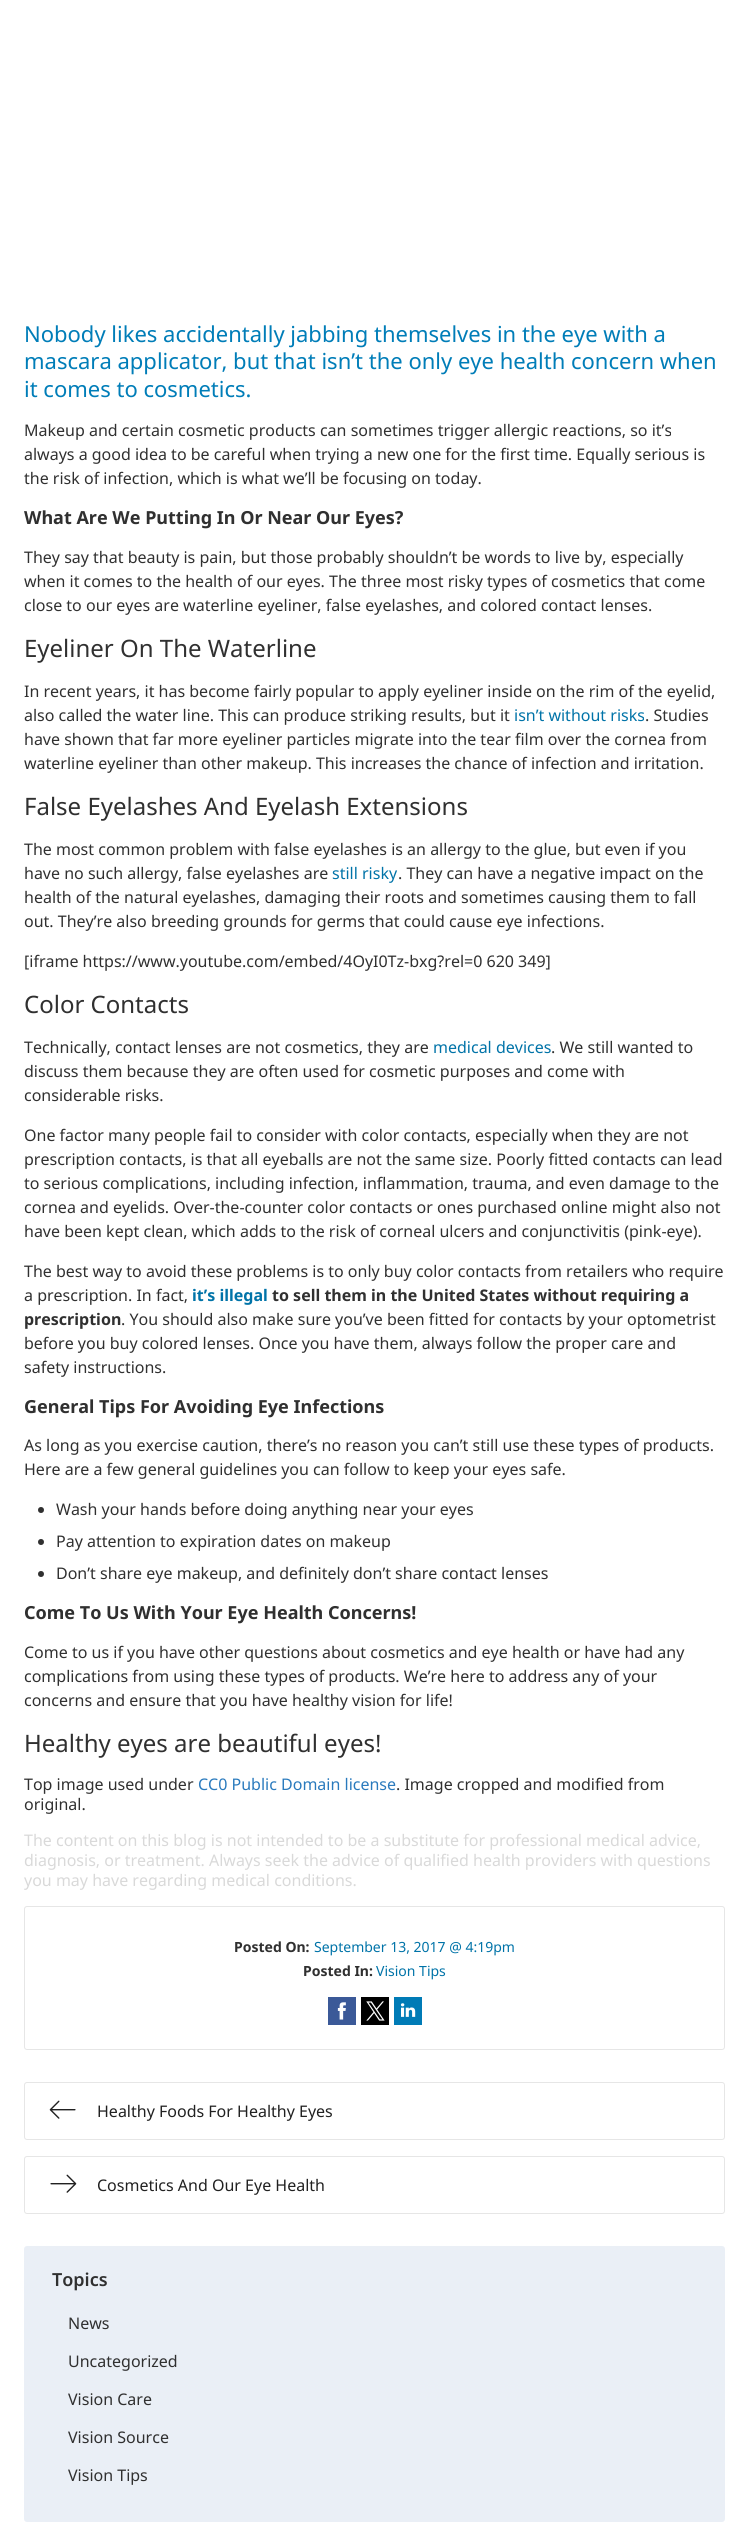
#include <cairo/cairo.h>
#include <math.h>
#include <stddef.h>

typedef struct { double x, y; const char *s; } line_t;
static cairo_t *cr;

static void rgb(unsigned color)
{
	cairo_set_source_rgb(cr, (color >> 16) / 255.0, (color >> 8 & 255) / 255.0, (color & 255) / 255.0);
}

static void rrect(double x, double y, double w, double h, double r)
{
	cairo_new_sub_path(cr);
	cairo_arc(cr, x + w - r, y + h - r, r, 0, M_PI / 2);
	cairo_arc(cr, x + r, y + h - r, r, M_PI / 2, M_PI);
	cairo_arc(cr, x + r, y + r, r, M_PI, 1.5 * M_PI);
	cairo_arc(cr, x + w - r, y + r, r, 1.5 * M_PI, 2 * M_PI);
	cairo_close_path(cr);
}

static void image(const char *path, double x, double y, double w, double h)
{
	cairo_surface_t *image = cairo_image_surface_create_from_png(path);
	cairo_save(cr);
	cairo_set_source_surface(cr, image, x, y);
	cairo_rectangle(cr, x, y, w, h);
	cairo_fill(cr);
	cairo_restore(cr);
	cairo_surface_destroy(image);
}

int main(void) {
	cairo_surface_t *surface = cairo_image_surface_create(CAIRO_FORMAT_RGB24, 749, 2531);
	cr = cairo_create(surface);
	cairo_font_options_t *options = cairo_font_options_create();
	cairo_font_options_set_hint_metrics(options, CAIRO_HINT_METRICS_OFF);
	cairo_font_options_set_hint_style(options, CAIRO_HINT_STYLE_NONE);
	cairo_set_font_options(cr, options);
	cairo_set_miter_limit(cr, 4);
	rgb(0xffffff);
	cairo_paint(cr);
	rgb(0x303030);
	cairo_arc(cr, 41, 1510, 3, 0, 2 * M_PI);
	cairo_fill(cr);
	cairo_arc(cr, 41, 1542, 3, 0, 2 * M_PI);
	cairo_fill(cr);
	cairo_arc(cr, 41, 1574, 3, 0, 2 * M_PI);
	cairo_fill(cr);
	rrect(24.5, 1906.5, 700, 143, 2.5);
	rgb(0xe6e6e6);
	cairo_set_line_width(cr, 1);
	cairo_stroke(cr);
	image("img/1.png", 328, 1997, 28, 28);
	image("img/2.png", 361, 1997, 28, 28);
	image("img/3.png", 394, 1997, 28, 28);
	rrect(24.5, 2082.5, 700, 57, 2.5);
	cairo_stroke(cr);
	image("img/4.png", 49, 2100, 27, 19);
	rrect(24.5, 2156.5, 700, 57, 2.5);
	cairo_stroke(cr);
	image("img/5.png", 50, 2174, 27, 19);
	rgb(0xeaeff6);
	rrect(24, 2246, 701, 276, 3);
	cairo_fill(cr);
	cairo_select_font_face(cr, "Noto Sans", CAIRO_FONT_SLANT_NORMAL, CAIRO_FONT_WEIGHT_NORMAL);
	cairo_set_font_size(cr, 22);
	rgb(0x007db8);
	{
		static const line_t items[] = {
			{24, 342, "Nobody likes accidentally jabbing themselves in the eye with a"},
			{24, 369, "mascara applicator, but that isn’t the only eye health concern when"},
			{24, 397, "it comes to cosmetics."},
		};
		for (size_t i = 0; i < sizeof items / sizeof *items; i++) {
			cairo_move_to(cr, items[i].x, items[i].y);
			cairo_show_text(cr, items[i].s);
		}
	}
	cairo_set_font_size(cr, 16);
	rgb(0x303030);
	{
		static const line_t items[] = {
			{24, 436, "Makeup and certain cosmetic products can sometimes trigger allergic reactions, so it’s"},
			{24, 460, "always a good idea to be careful when trying a new one for the first time. Equally serious is"},
			{24, 484, "the risk of infection, which is what we’ll be focusing on today."},
		};
		for (size_t i = 0; i < sizeof items / sizeof *items; i++) {
			cairo_move_to(cr, items[i].x, items[i].y);
			cairo_show_text(cr, items[i].s);
		}
	}
	cairo_select_font_face(cr, "Noto Sans", CAIRO_FONT_SLANT_NORMAL, CAIRO_FONT_WEIGHT_BOLD);
	cairo_set_font_size(cr, 18);
	cairo_move_to(cr, 24, 524);
	cairo_show_text(cr, "What Are We Putting In Or Near Our Eyes?");
	cairo_select_font_face(cr, "Noto Sans", CAIRO_FONT_SLANT_NORMAL, CAIRO_FONT_WEIGHT_NORMAL);
	cairo_set_font_size(cr, 16);
	{
		static const line_t items[] = {
			{24, 563, "They say that beauty is pain, but those probably shouldn’t be words to live by, especially"},
			{24, 587, "when it comes to the health of our eyes. The three most risky types of cosmetics that come"},
			{24, 611, "close to our eyes are waterline eyeliner, false eyelashes, and colored contact lenses."},
		};
		for (size_t i = 0; i < sizeof items / sizeof *items; i++) {
			cairo_move_to(cr, items[i].x, items[i].y);
			cairo_show_text(cr, items[i].s);
		}
	}
	cairo_set_font_size(cr, 24);
	cairo_move_to(cr, 24, 657);
	cairo_show_text(cr, "Eyeliner On The Waterline");
	cairo_set_font_size(cr, 16);
	cairo_move_to(cr, 24, 697);
	cairo_show_text(cr, "In recent years, it has become fairly popular to apply eyeliner inside on the rim of the eyelid,");
	cairo_move_to(cr, 24, 721);
	cairo_show_text(cr, "also called the water line. This can produce striking results, but it");
	rgb(0x0073a8);
	cairo_move_to(cr, 514, 721);
	cairo_show_text(cr, "isn’t without risks");
	rgb(0x303030);
	{
		static const line_t items[] = {
			{645, 721, ". Studies"},
			{24, 745, "have shown that far more eyeliner particles migrate into the tear film over the cornea from"},
			{24, 769, "waterline eyeliner than other makeup. This increases the chance of infection and irritation."},
		};
		for (size_t i = 0; i < sizeof items / sizeof *items; i++) {
			cairo_move_to(cr, items[i].x, items[i].y);
			cairo_show_text(cr, items[i].s);
		}
	}
	cairo_set_font_size(cr, 24);
	cairo_move_to(cr, 24, 815);
	cairo_show_text(cr, "False Eyelashes And Eyelash Extensions");
	cairo_set_font_size(cr, 16);
	cairo_move_to(cr, 24, 855);
	cairo_show_text(cr, "The most common problem with false eyelashes is an allergy to the glue, but even if you");
	cairo_move_to(cr, 24, 879);
	cairo_show_text(cr, "have no such allergy, false eyelashes are");
	rgb(0x0073a8);
	cairo_move_to(cr, 332, 879);
	cairo_show_text(cr, "still risky");
	rgb(0x303030);
	{
		static const line_t items[] = {
			{398, 879, ". They can have a negative impact on the"},
			{24, 903, "health of the natural eyelashes, damaging their roots and sometimes causing them to fall"},
			{24, 927, "out. They’re also breeding grounds for germs that could cause eye infections."},
			{24, 967, "[iframe https://www.youtube.com/embed/4OyI0Tz-bxg?rel=0 620 349]"},
		};
		for (size_t i = 0; i < sizeof items / sizeof *items; i++) {
			cairo_move_to(cr, items[i].x, items[i].y);
			cairo_show_text(cr, items[i].s);
		}
	}
	cairo_set_font_size(cr, 24);
	cairo_move_to(cr, 24, 1013);
	cairo_show_text(cr, "Color Contacts");
	cairo_set_font_size(cr, 16);
	cairo_move_to(cr, 24, 1053);
	cairo_show_text(cr, "Technically, contact lenses are not cosmetics, they are");
	rgb(0x0073a8);
	cairo_move_to(cr, 433, 1053);
	cairo_show_text(cr, "medical devices");
	rgb(0x303030);
	{
		static const line_t items[] = {
			{551, 1053, ". We still wanted to"},
			{24, 1077, "discuss them because they are often used for cosmetic purposes and come with"},
			{24, 1101, "considerable risks."},
			{24, 1141, "One factor many people fail to consider with color contacts, especially when they are not"},
			{24, 1165, "prescription contacts, is that all eyeballs are not the same size. Poorly fitted contacts can lead"},
			{24, 1189, "to serious complications, including infection, inflammation, trauma, and even damage to the"},
			{24, 1213, "cornea and eyelids. Over-the-counter color contacts or ones purchased online might also not"},
			{24, 1237, "have been kept clean, which adds to the risk of corneal ulcers and conjunctivitis (pink-eye)."},
			{24, 1277, "The best way to avoid these problems is to only buy color contacts from retailers who require"},
			{24, 1301, "a prescription. In fact,"},
		};
		for (size_t i = 0; i < sizeof items / sizeof *items; i++) {
			cairo_move_to(cr, items[i].x, items[i].y);
			cairo_show_text(cr, items[i].s);
		}
	}
	cairo_select_font_face(cr, "Noto Sans", CAIRO_FONT_SLANT_NORMAL, CAIRO_FONT_WEIGHT_BOLD);
	rgb(0x0073a8);
	cairo_move_to(cr, 192, 1301);
	cairo_show_text(cr, "it’s illegal");
	rgb(0x303030);
	cairo_move_to(cr, 272, 1301);
	cairo_show_text(cr, "to sell them in the United States without requiring a");
	cairo_move_to(cr, 24, 1325);
	cairo_show_text(cr, "prescription");
	cairo_select_font_face(cr, "Noto Sans", CAIRO_FONT_SLANT_NORMAL, CAIRO_FONT_WEIGHT_NORMAL);
	{
		static const line_t items[] = {
			{121, 1325, ". You should also make sure you’ve been fitted for contacts by your optometrist"},
			{24, 1349, "before you buy colored lenses. Once you have them, always follow the proper care and"},
			{24, 1373, "safety instructions."},
		};
		for (size_t i = 0; i < sizeof items / sizeof *items; i++) {
			cairo_move_to(cr, items[i].x, items[i].y);
			cairo_show_text(cr, items[i].s);
		}
	}
	cairo_select_font_face(cr, "Noto Sans", CAIRO_FONT_SLANT_NORMAL, CAIRO_FONT_WEIGHT_BOLD);
	cairo_set_font_size(cr, 18);
	cairo_move_to(cr, 24, 1413);
	cairo_show_text(cr, "General Tips For Avoiding Eye Infections");
	cairo_select_font_face(cr, "Noto Sans", CAIRO_FONT_SLANT_NORMAL, CAIRO_FONT_WEIGHT_NORMAL);
	cairo_set_font_size(cr, 16);
	{
		static const line_t items[] = {
			{24, 1451, "As long as you exercise caution, there’s no reason you can’t still use these types of products."},
			{24, 1475, "Here are a few general guidelines you can follow to keep your eyes safe."},
			{56, 1515, "Wash your hands before doing anything near your eyes"},
			{56, 1547, "Pay attention to expiration dates on makeup"},
			{56, 1579, "Don’t share eye makeup, and definitely don’t share contact lenses"},
		};
		for (size_t i = 0; i < sizeof items / sizeof *items; i++) {
			cairo_move_to(cr, items[i].x, items[i].y);
			cairo_show_text(cr, items[i].s);
		}
	}
	cairo_select_font_face(cr, "Noto Sans", CAIRO_FONT_SLANT_NORMAL, CAIRO_FONT_WEIGHT_BOLD);
	cairo_set_font_size(cr, 18);
	cairo_move_to(cr, 24, 1619);
	cairo_show_text(cr, "Come To Us With Your Eye Health Concerns!");
	cairo_select_font_face(cr, "Noto Sans", CAIRO_FONT_SLANT_NORMAL, CAIRO_FONT_WEIGHT_NORMAL);
	cairo_set_font_size(cr, 16);
	{
		static const line_t items[] = {
			{24, 1658, "Come to us if you have other questions about cosmetics and eye health or have had any"},
			{24, 1682, "complications from using these types of products. We’re here to address any of your"},
			{24, 1706, "concerns and ensure that you have healthy vision for life!"},
		};
		for (size_t i = 0; i < sizeof items / sizeof *items; i++) {
			cairo_move_to(cr, items[i].x, items[i].y);
			cairo_show_text(cr, items[i].s);
		}
	}
	cairo_set_font_size(cr, 24);
	cairo_move_to(cr, 24, 1752);
	cairo_show_text(cr, "Healthy eyes are beautiful eyes!");
	cairo_set_font_size(cr, 16);
	cairo_move_to(cr, 24, 1790);
	cairo_show_text(cr, "Top image used under");
	rgb(0x2a7abd);
	cairo_move_to(cr, 198, 1790);
	cairo_show_text(cr, "CC0 Public Domain license");
	rgb(0x303030);
	cairo_move_to(cr, 396, 1790);
	cairo_show_text(cr, ". Image cropped and modified from");
	cairo_move_to(cr, 24, 1810);
	cairo_show_text(cr, "original.");
	rgb(0xd9d9d9);
	{
		static const line_t items[] = {
			{24, 1846, "The content on this blog is not intended to be a substitute for professional medical advice,"},
			{24, 1866, "diagnosis, or treatment. Always seek the advice of qualified health providers with questions"},
			{24, 1886, "you may have regarding medical conditions."},
		};
		for (size_t i = 0; i < sizeof items / sizeof *items; i++) {
			cairo_move_to(cr, items[i].x, items[i].y);
			cairo_show_text(cr, items[i].s);
		}
	}
	cairo_select_font_face(cr, "Noto Sans", CAIRO_FONT_SLANT_NORMAL, CAIRO_FONT_WEIGHT_BOLD);
	cairo_set_font_size(cr, 14);
	rgb(0x303030);
	cairo_move_to(cr, 234, 1952);
	cairo_show_text(cr, "Posted On:");
	cairo_select_font_face(cr, "Noto Sans", CAIRO_FONT_SLANT_NORMAL, CAIRO_FONT_WEIGHT_NORMAL);
	rgb(0x0073a8);
	cairo_move_to(cr, 314, 1952);
	cairo_show_text(cr, "September 13, 2017 @ 4:19pm");
	cairo_select_font_face(cr, "Noto Sans", CAIRO_FONT_SLANT_NORMAL, CAIRO_FONT_WEIGHT_BOLD);
	rgb(0x303030);
	cairo_move_to(cr, 303, 1976);
	cairo_show_text(cr, "Posted In:");
	cairo_select_font_face(cr, "Noto Sans", CAIRO_FONT_SLANT_NORMAL, CAIRO_FONT_WEIGHT_NORMAL);
	rgb(0x0073a8);
	cairo_move_to(cr, 376, 1976);
	cairo_show_text(cr, "Vision Tips");
	cairo_set_font_size(cr, 16);
	rgb(0x212121);
	cairo_move_to(cr, 97, 2117);
	cairo_show_text(cr, "Healthy Foods For Healthy Eyes");
	cairo_move_to(cr, 97, 2191);
	cairo_show_text(cr, "Cosmetics And Our Eye Health");
	cairo_select_font_face(cr, "Noto Sans SemiBold", CAIRO_FONT_SLANT_NORMAL, CAIRO_FONT_WEIGHT_NORMAL);
	cairo_set_font_size(cr, 18);
	rgb(0x303030);
	cairo_move_to(cr, 52, 2286);
	cairo_show_text(cr, "Topics");
	cairo_select_font_face(cr, "Noto Sans", CAIRO_FONT_SLANT_NORMAL, CAIRO_FONT_WEIGHT_NORMAL);
	cairo_set_font_size(cr, 16);
	{
		static const line_t items[] = {
			{68, 2329, "News"},
			{68, 2367, "Uncategorized"},
			{68, 2405, "Vision Care"},
			{68, 2443, "Vision Source"},
			{68, 2481, "Vision Tips"},
		};
		for (size_t i = 0; i < sizeof items / sizeof *items; i++) {
			cairo_move_to(cr, items[i].x, items[i].y);
			cairo_show_text(cr, items[i].s);
		}
	}
	cairo_surface_write_to_png(surface, "page.png");
	cairo_font_options_destroy(options);
	cairo_destroy(cr);
	cairo_surface_destroy(surface);
	return 0;
}
